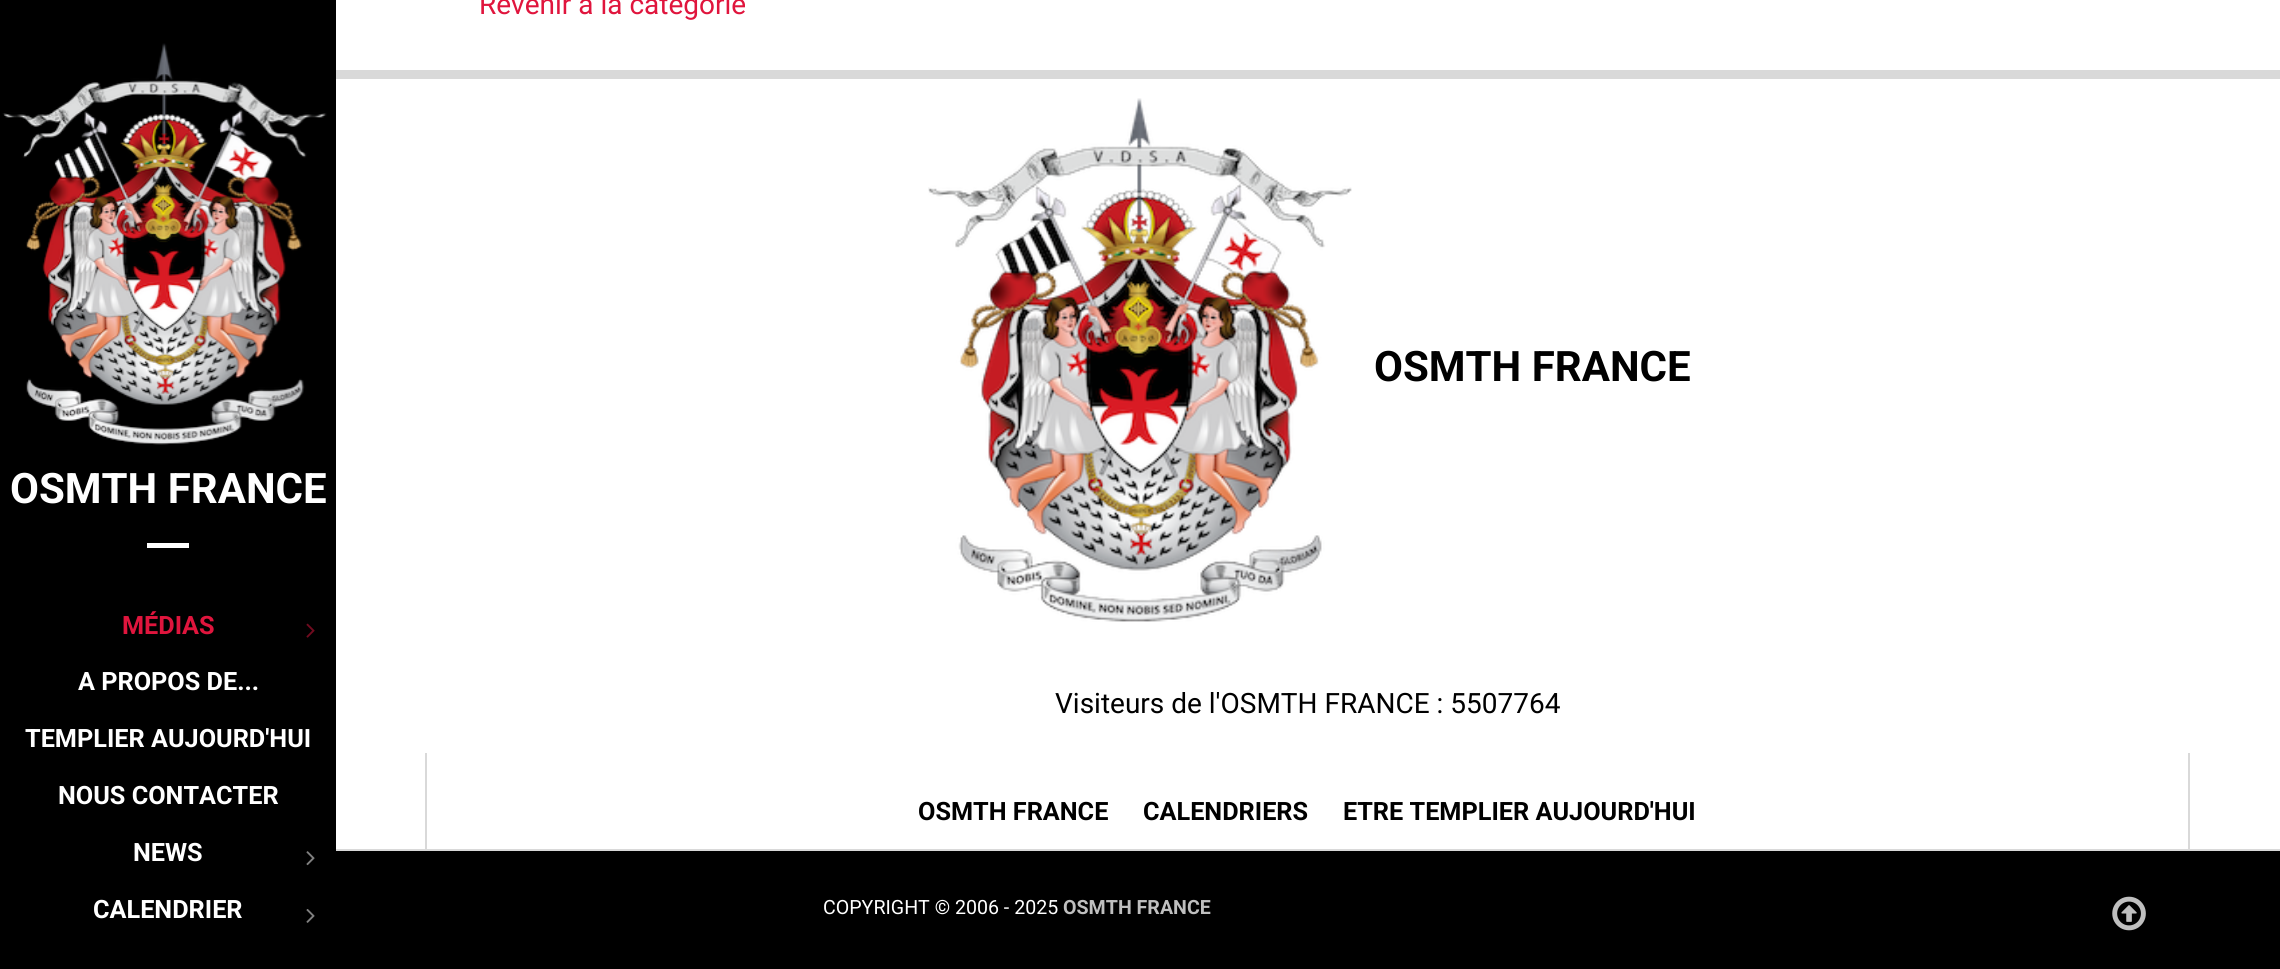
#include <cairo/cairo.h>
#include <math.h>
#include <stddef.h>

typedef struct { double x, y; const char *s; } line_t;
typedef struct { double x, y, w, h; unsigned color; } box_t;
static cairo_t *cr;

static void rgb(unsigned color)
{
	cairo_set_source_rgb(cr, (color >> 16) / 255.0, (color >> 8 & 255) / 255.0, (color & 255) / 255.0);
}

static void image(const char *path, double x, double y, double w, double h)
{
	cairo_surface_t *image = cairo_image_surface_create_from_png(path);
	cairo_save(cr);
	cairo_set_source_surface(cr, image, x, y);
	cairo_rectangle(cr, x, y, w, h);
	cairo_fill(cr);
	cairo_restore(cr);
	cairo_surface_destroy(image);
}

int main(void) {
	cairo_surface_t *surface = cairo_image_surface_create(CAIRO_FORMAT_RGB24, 2280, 969);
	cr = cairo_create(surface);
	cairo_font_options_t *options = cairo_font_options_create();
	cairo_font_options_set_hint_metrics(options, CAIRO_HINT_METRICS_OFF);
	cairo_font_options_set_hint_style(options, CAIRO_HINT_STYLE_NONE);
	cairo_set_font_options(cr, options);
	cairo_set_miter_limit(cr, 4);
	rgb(0xffffff);
	cairo_paint(cr);
	rgb(0x000000);
	cairo_rectangle(cr, 0, 0, 336, 969);
	cairo_fill(cr);
	image("img/1.png", 2, 43, 325, 402);
	rgb(0xffffff);
	cairo_rectangle(cr, 147, 543, 42, 5);
	cairo_fill(cr);
	image("img/2.png", 306, 623, 9, 15);
	image("img/3.png", 306, 851, 9, 15);
	image("img/4.png", 306, 909, 9, 14);
	rgb(0xd9d9d9);
	cairo_rectangle(cr, 336, 70, 1944, 9);
	cairo_fill(cr);
	cairo_rectangle(cr, 336, 849, 1944, 2);
	cairo_fill(cr);
	image("img/5.png", 928, 98, 424, 524);
	{
		static const box_t items[] = {
			{2188, 753, 2, 96, 0xd9d9d9},
			{425, 753, 2, 96, 0xd9d9d9},
			{336, 851, 1944, 118, 0x000000},
		};
		for (size_t i = 0; i < sizeof items / sizeof *items; i++) {
			rgb(items[i].color);
			cairo_rectangle(cr, items[i].x, items[i].y, items[i].w, items[i].h);
			cairo_fill(cr);
		}
	}
	image("img/6.png", 2112, 896, 34, 35);
	cairo_select_font_face(cr, "Roboto", CAIRO_FONT_SLANT_NORMAL, CAIRO_FONT_WEIGHT_NORMAL);
	cairo_set_font_size(cr, 28);
	rgb(0xe0153d);
	cairo_move_to(cr, 479, 14);
	cairo_show_text(cr, "Revenir à la catégorie");
	cairo_select_font_face(cr, "Roboto", CAIRO_FONT_SLANT_NORMAL, CAIRO_FONT_WEIGHT_BOLD);
	cairo_set_font_size(cr, 42);
	rgb(0xffffff);
	cairo_move_to(cr, 10, 503);
	cairo_show_text(cr, "OSMTH FRANCE");
	cairo_set_font_size(cr, 25.25);
	rgb(0xe0153d);
	cairo_move_to(cr, 122, 634);
	cairo_show_text(cr, "MÉDIAS");
	rgb(0xffffff);
	{
		static const line_t items[] = {
			{78, 690, "A PROPOS DE..."},
			{25, 747, "TEMPLIER AUJOURD'HUI"},
			{58, 804, "NOUS CONTACTER"},
			{133, 861, "NEWS"},
			{93, 918, "CALENDRIER"},
		};
		for (size_t i = 0; i < sizeof items / sizeof *items; i++) {
			cairo_move_to(cr, items[i].x, items[i].y);
			cairo_show_text(cr, items[i].s);
		}
	}
	cairo_set_font_size(cr, 42);
	rgb(0x000000);
	cairo_move_to(cr, 1374, 381);
	cairo_show_text(cr, "OSMTH FRANCE");
	cairo_select_font_face(cr, "Roboto", CAIRO_FONT_SLANT_NORMAL, CAIRO_FONT_WEIGHT_NORMAL);
	cairo_set_font_size(cr, 28);
	cairo_move_to(cr, 1055, 713);
	cairo_show_text(cr, "Visiteurs de l'OSMTH FRANCE : 5507764");
	cairo_select_font_face(cr, "Roboto", CAIRO_FONT_SLANT_NORMAL, CAIRO_FONT_WEIGHT_BOLD);
	cairo_set_font_size(cr, 25.25);
	{
		static const line_t items[] = {
			{918, 820, "OSMTH FRANCE"},
			{1143, 820, "CALENDRIERS"},
			{1343, 820, "ETRE TEMPLIER AUJOURD'HUI"},
		};
		for (size_t i = 0; i < sizeof items / sizeof *items; i++) {
			cairo_move_to(cr, items[i].x, items[i].y);
			cairo_show_text(cr, items[i].s);
		}
	}
	cairo_select_font_face(cr, "Roboto", CAIRO_FONT_SLANT_NORMAL, CAIRO_FONT_WEIGHT_NORMAL);
	cairo_set_font_size(cr, 19.6);
	rgb(0xffffff);
	cairo_move_to(cr, 823, 914);
	cairo_show_text(cr, "COPYRIGHT © 2006 - 2025");
	cairo_select_font_face(cr, "Roboto", CAIRO_FONT_SLANT_NORMAL, CAIRO_FONT_WEIGHT_BOLD);
	rgb(0xbfbfbf);
	cairo_move_to(cr, 1063, 914);
	cairo_show_text(cr, "OSMTH FRANCE");
	cairo_surface_write_to_png(surface, "page.png");
	cairo_font_options_destroy(options);
	cairo_destroy(cr);
	cairo_surface_destroy(surface);
	return 0;
}
